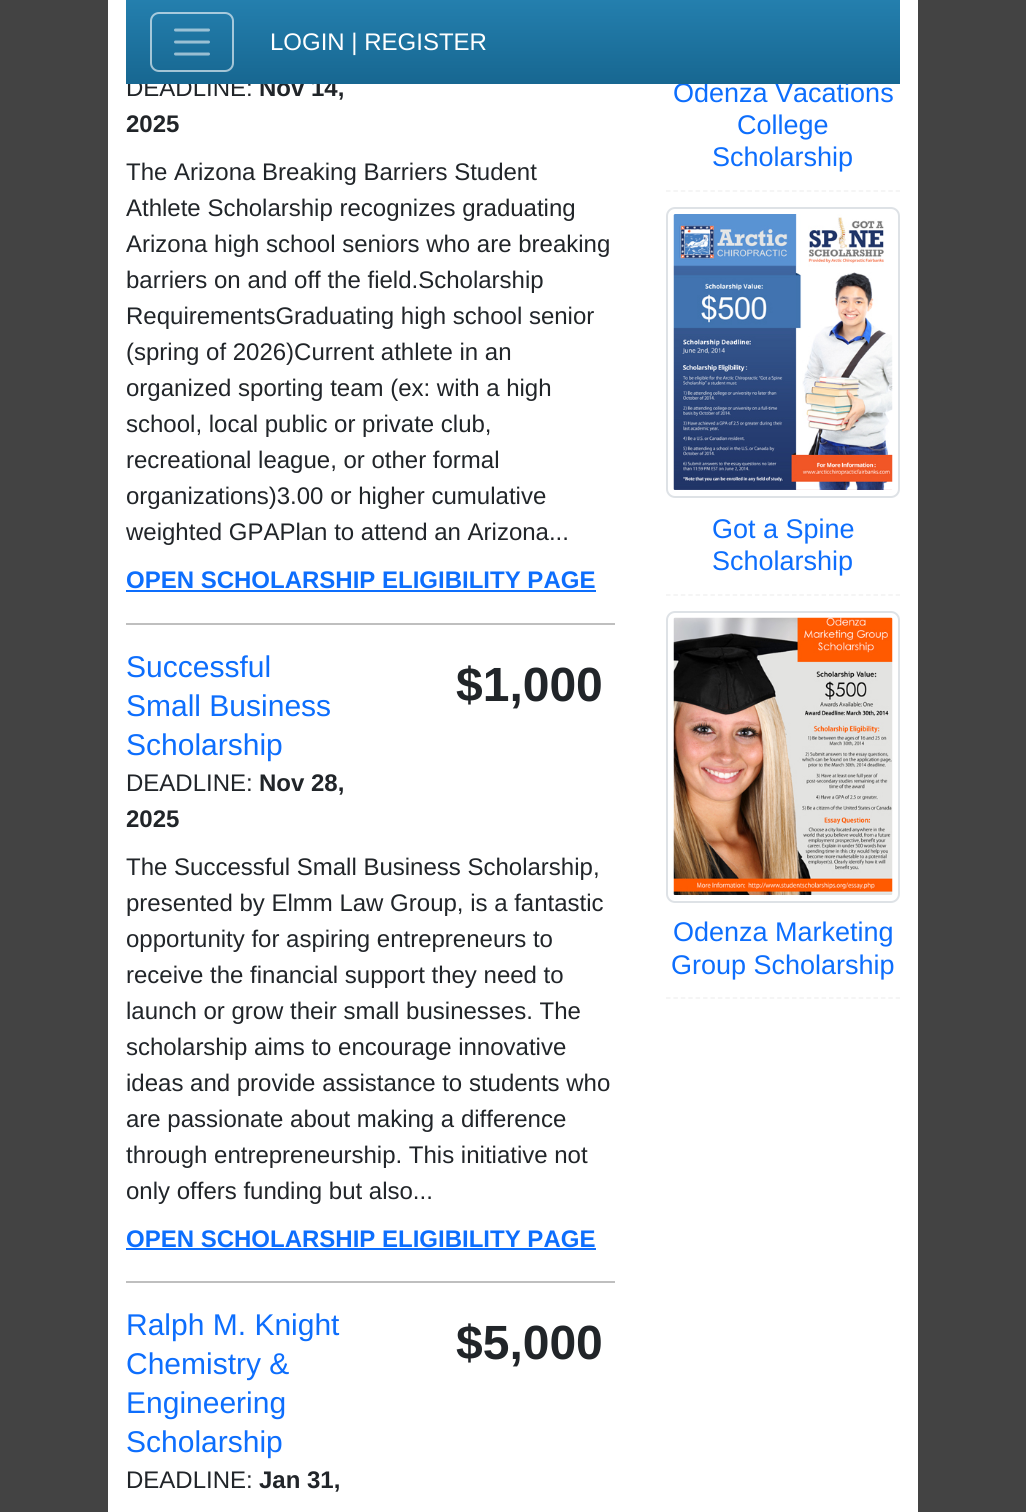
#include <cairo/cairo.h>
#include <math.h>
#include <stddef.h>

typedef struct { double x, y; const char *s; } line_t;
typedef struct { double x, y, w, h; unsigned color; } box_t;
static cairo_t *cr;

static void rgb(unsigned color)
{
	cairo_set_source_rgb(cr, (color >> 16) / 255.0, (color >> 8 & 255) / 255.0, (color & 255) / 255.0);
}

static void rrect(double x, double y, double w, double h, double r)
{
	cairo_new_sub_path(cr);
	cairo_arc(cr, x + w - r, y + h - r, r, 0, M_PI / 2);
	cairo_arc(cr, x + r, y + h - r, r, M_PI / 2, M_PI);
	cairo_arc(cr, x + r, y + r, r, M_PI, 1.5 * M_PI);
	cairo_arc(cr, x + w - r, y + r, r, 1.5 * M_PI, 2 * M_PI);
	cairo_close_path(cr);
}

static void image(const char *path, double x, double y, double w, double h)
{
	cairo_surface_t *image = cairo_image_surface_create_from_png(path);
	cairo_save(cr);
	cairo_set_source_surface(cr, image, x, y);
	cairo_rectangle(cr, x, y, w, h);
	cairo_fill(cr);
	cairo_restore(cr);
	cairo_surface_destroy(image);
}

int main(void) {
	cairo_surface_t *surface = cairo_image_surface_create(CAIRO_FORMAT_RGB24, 1026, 1512);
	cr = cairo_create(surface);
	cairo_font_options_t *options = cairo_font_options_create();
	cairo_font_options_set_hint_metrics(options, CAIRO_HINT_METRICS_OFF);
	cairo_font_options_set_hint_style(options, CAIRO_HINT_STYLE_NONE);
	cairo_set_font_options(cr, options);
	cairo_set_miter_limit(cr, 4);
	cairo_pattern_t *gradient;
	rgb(0x434343);
	cairo_paint(cr);
	{
		static const box_t items[] = {
			{108, 0, 810, 1512, 0xffffff},
			{126, 590, 470, 2, 0x0d6efd},
			{126, 623, 489, 2, 0xbfbfbf},
			{126, 1248, 470, 2, 0x0d6efd},
			{126, 1281, 489, 2, 0xbfbfbf},
		};
		for (size_t i = 0; i < sizeof items / sizeof *items; i++) {
			rgb(items[i].color);
			cairo_rectangle(cr, items[i].x, items[i].y, items[i].w, items[i].h);
			cairo_fill(cr);
		}
	}
	cairo_new_path(cr);
	cairo_move_to(cr, 666, 191);
	cairo_line_to(cr, 900, 191);
	rgb(0xf2f2f2);
	cairo_set_line_width(cr, 1.5);
	cairo_set_dash(cr, (double[]){4.5, 2.91}, 2, 0);
	cairo_stroke(cr);
	rrect(667, 208, 232, 289, 8);
	rgb(0xdee2e6);
	cairo_set_line_width(cr, 2);
	cairo_set_dash(cr, NULL, 0, 0);
	cairo_stroke(cr);
	image("img/1.png", 673, 214, 220, 276);
	cairo_new_path(cr);
	cairo_move_to(cr, 666, 595);
	cairo_line_to(cr, 900, 595);
	rgb(0xf2f2f2);
	cairo_set_line_width(cr, 1.5);
	cairo_set_dash(cr, (double[]){4.5, 2.91}, 2, 0);
	cairo_stroke(cr);
	rrect(667, 612, 232, 290, 8);
	rgb(0xdee2e6);
	cairo_set_line_width(cr, 2);
	cairo_set_dash(cr, NULL, 0, 0);
	cairo_stroke(cr);
	image("img/2.png", 673, 617, 220, 278);
	cairo_new_path(cr);
	cairo_move_to(cr, 666, 998);
	cairo_line_to(cr, 900, 998);
	rgb(0xf2f2f2);
	cairo_set_line_width(cr, 1.5);
	cairo_set_dash(cr, (double[]){4.5, 2.91}, 2, 0);
	cairo_stroke(cr);
	cairo_select_font_face(cr, "Liberation Sans", CAIRO_FONT_SLANT_NORMAL, CAIRO_FONT_WEIGHT_NORMAL);
	cairo_set_font_size(cr, 24);
	rgb(0x212529);
	cairo_move_to(cr, 126, 96);
	cairo_show_text(cr, "DEADLINE:");
	cairo_select_font_face(cr, "Liberation Sans", CAIRO_FONT_SLANT_NORMAL, CAIRO_FONT_WEIGHT_BOLD);
	cairo_move_to(cr, 259, 96);
	cairo_show_text(cr, "Nov 14,");
	cairo_move_to(cr, 126, 132);
	cairo_show_text(cr, "2025");
	cairo_select_font_face(cr, "Liberation Sans", CAIRO_FONT_SLANT_NORMAL, CAIRO_FONT_WEIGHT_NORMAL);
	{
		static const line_t items[] = {
			{126, 180, "The Arizona Breaking Barriers Student"},
			{126, 216, "Athlete Scholarship recognizes graduating"},
			{126, 252, "Arizona high school seniors who are breaking"},
			{126, 288, "barriers on and off the field.Scholarship"},
			{126, 324, "RequirementsGraduating high school senior"},
			{126, 360, "(spring of 2026)Current athlete in an"},
			{126, 396, "organized sporting team (ex: with a high"},
			{126, 432, "school, local public or private club,"},
			{126, 468, "recreational league, or other formal"},
			{126, 504, "organizations)3.00 or higher cumulative"},
			{126, 540, "weighted GPAPlan to attend an Arizona..."},
		};
		for (size_t i = 0; i < sizeof items / sizeof *items; i++) {
			cairo_move_to(cr, items[i].x, items[i].y);
			cairo_show_text(cr, items[i].s);
		}
	}
	cairo_select_font_face(cr, "Liberation Sans", CAIRO_FONT_SLANT_NORMAL, CAIRO_FONT_WEIGHT_BOLD);
	rgb(0x0d6efd);
	cairo_move_to(cr, 126, 588);
	cairo_show_text(cr, "OPEN SCHOLARSHIP ELIGIBILITY PAGE");
	cairo_select_font_face(cr, "Liberation Sans", CAIRO_FONT_SLANT_NORMAL, CAIRO_FONT_WEIGHT_NORMAL);
	cairo_set_font_size(cr, 30);
	{
		static const line_t items[] = {
			{126, 677, "Successful"},
			{126, 716, "Small Business"},
			{126, 755, "Scholarship"},
		};
		for (size_t i = 0; i < sizeof items / sizeof *items; i++) {
			cairo_move_to(cr, items[i].x, items[i].y);
			cairo_show_text(cr, items[i].s);
		}
	}
	cairo_set_font_size(cr, 24);
	rgb(0x212529);
	cairo_move_to(cr, 126, 791);
	cairo_show_text(cr, "DEADLINE:");
	cairo_select_font_face(cr, "Liberation Sans", CAIRO_FONT_SLANT_NORMAL, CAIRO_FONT_WEIGHT_BOLD);
	cairo_move_to(cr, 259, 791);
	cairo_show_text(cr, "Nov 28,");
	cairo_move_to(cr, 126, 827);
	cairo_show_text(cr, "2025");
	cairo_set_font_size(cr, 48);
	cairo_move_to(cr, 456, 701);
	cairo_show_text(cr, "$1,000");
	cairo_select_font_face(cr, "Liberation Sans", CAIRO_FONT_SLANT_NORMAL, CAIRO_FONT_WEIGHT_NORMAL);
	cairo_set_font_size(cr, 24);
	{
		static const line_t items[] = {
			{126, 875, "The Successful Small Business Scholarship,"},
			{126, 911, "presented by Elmm Law Group, is a fantastic"},
			{126, 947, "opportunity for aspiring entrepreneurs to"},
			{126, 983, "receive the financial support they need to"},
			{126, 1019, "launch or grow their small businesses. The"},
			{126, 1055, "scholarship aims to encourage innovative"},
			{126, 1091, "ideas and provide assistance to students who"},
			{126, 1127, "are passionate about making a difference"},
			{126, 1163, "through entrepreneurship. This initiative not"},
			{126, 1199, "only offers funding but also..."},
		};
		for (size_t i = 0; i < sizeof items / sizeof *items; i++) {
			cairo_move_to(cr, items[i].x, items[i].y);
			cairo_show_text(cr, items[i].s);
		}
	}
	cairo_select_font_face(cr, "Liberation Sans", CAIRO_FONT_SLANT_NORMAL, CAIRO_FONT_WEIGHT_BOLD);
	rgb(0x0d6efd);
	cairo_move_to(cr, 126, 1247);
	cairo_show_text(cr, "OPEN SCHOLARSHIP ELIGIBILITY PAGE");
	cairo_select_font_face(cr, "Liberation Sans", CAIRO_FONT_SLANT_NORMAL, CAIRO_FONT_WEIGHT_NORMAL);
	cairo_set_font_size(cr, 30);
	{
		static const line_t items[] = {
			{126, 1335, "Ralph M. Knight"},
			{126, 1374, "Chemistry &"},
			{126, 1413, "Engineering"},
			{126, 1452, "Scholarship"},
		};
		for (size_t i = 0; i < sizeof items / sizeof *items; i++) {
			cairo_move_to(cr, items[i].x, items[i].y);
			cairo_show_text(cr, items[i].s);
		}
	}
	cairo_set_font_size(cr, 24);
	rgb(0x212529);
	cairo_move_to(cr, 126, 1488);
	cairo_show_text(cr, "DEADLINE:");
	cairo_select_font_face(cr, "Liberation Sans", CAIRO_FONT_SLANT_NORMAL, CAIRO_FONT_WEIGHT_BOLD);
	cairo_move_to(cr, 259, 1488);
	cairo_show_text(cr, "Jan 31,");
	cairo_set_font_size(cr, 48);
	cairo_move_to(cr, 456, 1359);
	cairo_show_text(cr, "$5,000");
	cairo_select_font_face(cr, "Liberation Sans", CAIRO_FONT_SLANT_NORMAL, CAIRO_FONT_WEIGHT_NORMAL);
	cairo_set_font_size(cr, 27);
	rgb(0x0d6efd);
	cairo_move_to(cr, 673, 102);
	cairo_show_text(cr, "Odenza Vacations");
	gradient = cairo_pattern_create_linear(513, 84, 513, 0);
	cairo_pattern_add_color_stop_rgba(gradient, 0, 0.09, 0.404, 0.569, 1);
	cairo_pattern_add_color_stop_rgba(gradient, 1, 0.141, 0.498, 0.682, 1);
	cairo_set_source(cr, gradient);
	cairo_pattern_destroy(gradient);
	cairo_rectangle(cr, 126, 0, 774, 84);
	cairo_fill(cr);
	rrect(151, 13, 82, 58, 8);
	cairo_set_source_rgba(cr, 1, 1, 1, 0.6);
	cairo_set_line_width(cr, 2);
	cairo_set_dash(cr, NULL, 0, 0);
	cairo_stroke(cr);
	cairo_new_path(cr);
	cairo_move_to(cr, 175.5, 30);
	cairo_line_to(cr, 208.5, 30);
	cairo_move_to(cr, 175.5, 42);
	cairo_line_to(cr, 208.5, 42);
	cairo_move_to(cr, 175.5, 54);
	cairo_line_to(cr, 208.5, 54);
	cairo_set_source_rgba(cr, 1, 1, 1, 0.55);
	cairo_set_line_width(cr, 3);
	cairo_set_line_cap(cr, CAIRO_LINE_CAP_ROUND);
	cairo_stroke(cr);
	cairo_set_font_size(cr, 24);
	rgb(0xffffff);
	cairo_move_to(cr, 270, 50);
	cairo_show_text(cr, "LOGIN | REGISTER");
	cairo_set_font_size(cr, 27);
	rgb(0x0d6efd);
	{
		static const line_t items[] = {
			{737, 134, "College"},
			{712, 166, "Scholarship"},
			{712, 538, "Got a Spine"},
			{712, 570, "Scholarship"},
			{673, 941, "Odenza Marketing"},
			{671, 974, "Group Scholarship"},
		};
		for (size_t i = 0; i < sizeof items / sizeof *items; i++) {
			cairo_move_to(cr, items[i].x, items[i].y);
			cairo_show_text(cr, items[i].s);
		}
	}
	cairo_surface_write_to_png(surface, "page.png");
	cairo_font_options_destroy(options);
	cairo_destroy(cr);
	cairo_surface_destroy(surface);
	return 0;
}
